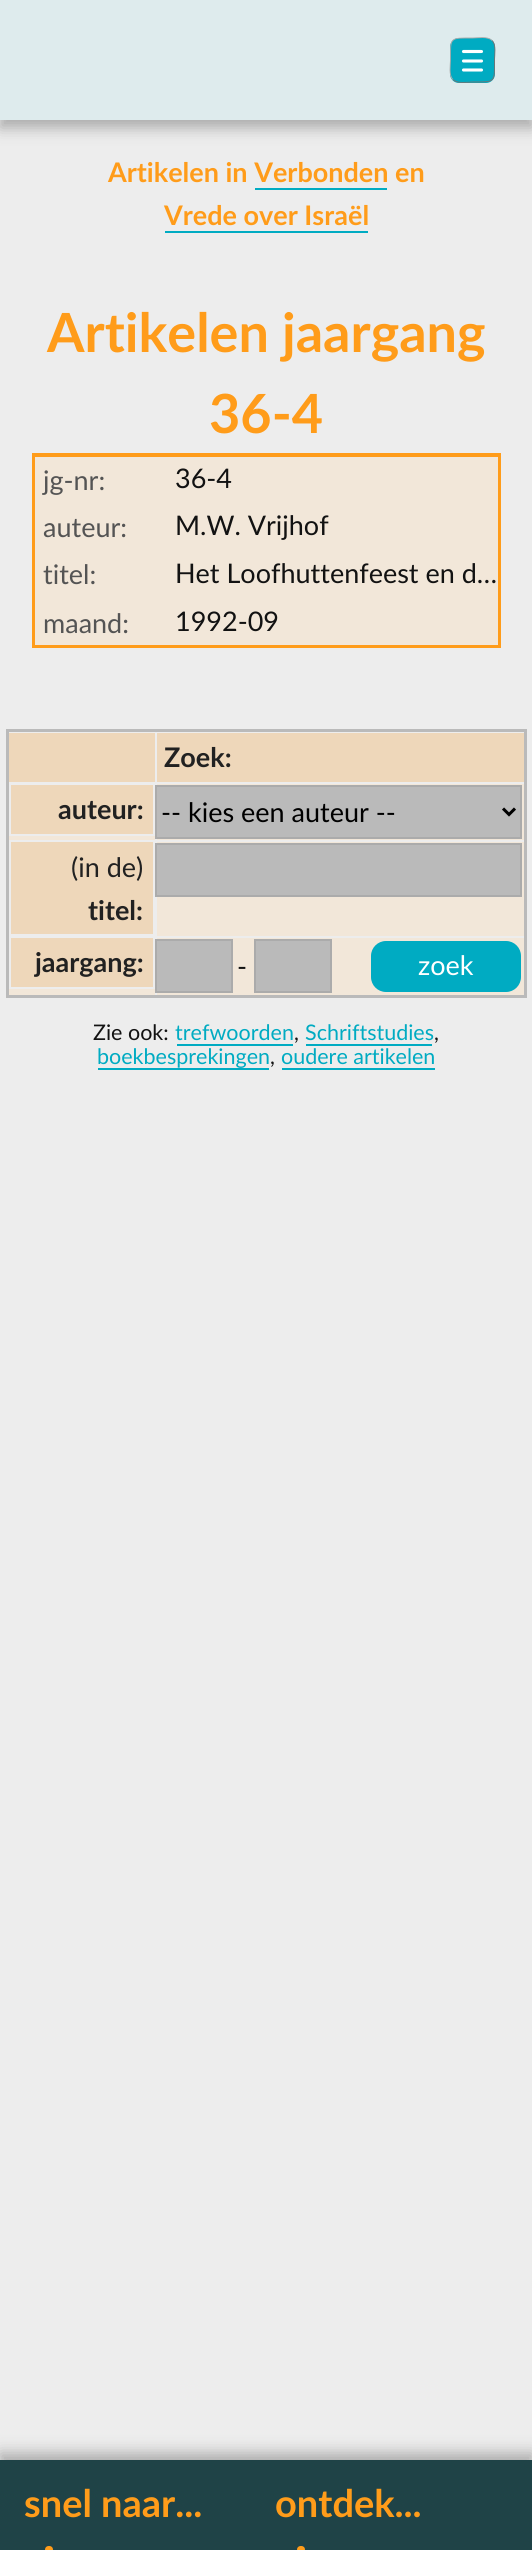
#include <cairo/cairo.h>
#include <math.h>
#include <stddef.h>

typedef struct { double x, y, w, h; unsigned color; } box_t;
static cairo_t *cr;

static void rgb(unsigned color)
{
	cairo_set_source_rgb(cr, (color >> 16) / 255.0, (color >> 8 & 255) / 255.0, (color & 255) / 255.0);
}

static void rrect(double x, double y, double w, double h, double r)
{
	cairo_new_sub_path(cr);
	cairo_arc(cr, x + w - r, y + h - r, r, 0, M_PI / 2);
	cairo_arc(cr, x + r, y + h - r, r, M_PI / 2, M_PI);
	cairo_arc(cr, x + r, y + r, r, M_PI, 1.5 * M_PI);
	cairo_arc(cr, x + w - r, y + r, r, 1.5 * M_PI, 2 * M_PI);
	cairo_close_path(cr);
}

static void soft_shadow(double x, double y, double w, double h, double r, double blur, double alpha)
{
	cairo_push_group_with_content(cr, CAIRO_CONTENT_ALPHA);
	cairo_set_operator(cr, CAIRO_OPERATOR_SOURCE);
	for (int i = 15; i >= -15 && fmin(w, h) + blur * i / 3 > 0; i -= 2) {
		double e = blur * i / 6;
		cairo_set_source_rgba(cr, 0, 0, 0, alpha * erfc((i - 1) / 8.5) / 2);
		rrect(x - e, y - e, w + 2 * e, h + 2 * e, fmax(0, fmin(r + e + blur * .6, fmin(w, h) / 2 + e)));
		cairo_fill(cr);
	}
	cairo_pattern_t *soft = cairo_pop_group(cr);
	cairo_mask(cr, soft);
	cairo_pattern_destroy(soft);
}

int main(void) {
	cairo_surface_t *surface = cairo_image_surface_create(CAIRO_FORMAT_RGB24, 532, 2550);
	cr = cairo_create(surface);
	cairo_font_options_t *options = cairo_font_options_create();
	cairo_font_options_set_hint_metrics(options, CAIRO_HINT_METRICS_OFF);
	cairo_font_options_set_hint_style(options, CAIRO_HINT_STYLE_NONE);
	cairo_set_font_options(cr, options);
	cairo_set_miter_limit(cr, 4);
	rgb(0xededed);
	cairo_paint(cr);
	rgb(0xababab);
	soft_shadow(0, 8, 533, 120, 0, 7.5, 1);
	rgb(0xdeebed);
	cairo_rectangle(cr, 0, 0, 532, 120);
	cairo_fill(cr);
	rgb(0x00abc2);
	rrect(450, 38, 45, 45, 9);
	cairo_fill(cr);
	cairo_new_path(cr);
	cairo_move_to(cr, 492, 40.5);
	cairo_curve_to(cr, 496.5, 44.5, 494.5, 55, 494.5, 60);
	cairo_curve_to(cr, 494.5, 83, 495.5, 82, 472.5, 82);
	cairo_curve_to(cr, 467.5, 82, 457, 84, 453, 79.5);
	rgb(0x727272);
	cairo_set_line_width(cr, 0.9);
	cairo_stroke(cr);
	cairo_new_path(cr);
	cairo_move_to(cr, 453, 79.5);
	cairo_curve_to(cr, 448.5, 75.5, 450.5, 65, 450.5, 60);
	cairo_curve_to(cr, 450.5, 37, 449.5, 38, 472.5, 38);
	cairo_curve_to(cr, 477.5, 38, 488, 36, 492, 40.5);
	rgb(0xababab);
	cairo_stroke(cr);
	cairo_new_path(cr);
	cairo_move_to(cr, 481.5, 51.5);
	cairo_line_to(cr, 463.5, 51.5);
	cairo_move_to(cr, 481.5, 61);
	cairo_line_to(cr, 463.5, 61);
	cairo_move_to(cr, 481.5, 70);
	cairo_line_to(cr, 463.5, 70);
	rgb(0xffffff);
	cairo_set_line_width(cr, 3.1);
	cairo_set_line_cap(cr, CAIRO_LINE_CAP_ROUND);
	cairo_set_line_join(cr, CAIRO_LINE_JOIN_ROUND);
	cairo_stroke(cr);
	rgb(0x00abc2);
	cairo_rectangle(cr, 255, 188, 132, 2);
	cairo_fill(cr);
	cairo_rectangle(cr, 165, 231, 203, 2);
	cairo_fill(cr);
	cairo_rectangle(cr, 33, 454, 467, 193);
	rgb(0xff9c1a);
	cairo_set_line_width(cr, 2);
	cairo_set_line_cap(cr, CAIRO_LINE_CAP_BUTT);
	cairo_set_line_join(cr, CAIRO_LINE_JOIN_MITER);
	cairo_stroke(cr);
	rgb(0xf2e7d9);
	cairo_rectangle(cr, 34, 456, 465, 190);
	cairo_fill_preserve(cr);
	rgb(0xff9c1a);
	cairo_stroke(cr);
	{
		static const box_t items[] = {
			{6, 729, 521, 3, 0xbababa},
			{524, 729, 3, 269, 0xbababa},
			{9, 938, 515, 57, 0xf2e7d9},
			{155, 936, 2, 60, 0xededed},
			{6, 995, 521, 3, 0xbababa},
			{6, 729, 3, 269, 0xbababa},
			{9, 733, 146, 49, 0xeed7ba},
			{157, 733, 367, 49, 0xeed7ba},
			{9, 784, 515, 56, 0xf2e7d9},
		};
		for (size_t i = 0; i < sizeof items / sizeof *items; i++) {
			rgb(items[i].color);
			cairo_rectangle(cr, items[i].x, items[i].y, items[i].w, items[i].h);
			cairo_fill(cr);
		}
	}
	rgb(0xeed7ba);
	cairo_rectangle(cr, 10, 784, 144, 51);
	cairo_fill_preserve(cr);
	rgb(0xededed);
	cairo_stroke(cr);
	cairo_rectangle(cr, 155, 782, 2, 60);
	cairo_fill(cr);
	rgb(0xbababa);
	cairo_rectangle(cr, 157, 787, 363, 50);
	cairo_fill(cr);
	cairo_new_path(cr);
	cairo_move_to(cr, 503, 808.5);
	cairo_line_to(cr, 509, 814.5);
	cairo_line_to(cr, 515, 808.5);
	rgb(0x000000);
	cairo_set_line_width(cr, 3);
	cairo_stroke(cr);
	cairo_rectangle(cr, 156, 786, 365, 52);
	rgb(0xababab);
	cairo_set_line_width(cr, 2);
	cairo_stroke(cr);
	rgb(0xf2e7d9);
	cairo_rectangle(cr, 157, 842, 367, 94);
	cairo_fill(cr);
	rgb(0xeed7ba);
	cairo_rectangle(cr, 11, 842, 142, 92);
	cairo_fill(cr);
	rgb(0xbababa);
	cairo_rectangle(cr, 156, 844, 365, 52);
	cairo_fill_preserve(cr);
	rgb(0xababab);
	cairo_stroke(cr);
	rgb(0xeed7ba);
	cairo_rectangle(cr, 10, 937, 144, 51);
	cairo_fill_preserve(cr);
	rgb(0xededed);
	cairo_stroke(cr);
	rgb(0xbababa);
	cairo_rectangle(cr, 156, 940, 76, 52);
	cairo_fill_preserve(cr);
	rgb(0xababab);
	cairo_stroke(cr);
	rgb(0xbababa);
	cairo_rectangle(cr, 255, 940, 76, 52);
	cairo_fill_preserve(cr);
	rgb(0xababab);
	cairo_stroke(cr);
	rgb(0x00abc2);
	rrect(371, 941, 150, 51, 15);
	cairo_fill(cr);
	{
		static const box_t items[] = {
			{177, 1044, 116, 2, 0x00abc2},
			{306, 1044, 126, 2, 0x00abc2},
			{98, 1068, 171, 2, 0x00abc2},
			{282, 1068, 153, 2, 0x00abc2},
		};
		for (size_t i = 0; i < sizeof items / sizeof *items; i++) {
			rgb(items[i].color);
			cairo_rectangle(cr, items[i].x, items[i].y, items[i].w, items[i].h);
			cairo_fill(cr);
		}
	}
	rgb(0xababab);
	soft_shadow(0, 2453, 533, 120, 0, 7.5, 1);
	rgb(0x1f4347);
	cairo_rectangle(cr, 0, 2460, 532, 90);
	cairo_fill(cr);
	rgb(0xff9c1a);
	rrect(45, 2546, 8, 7, 3.5);
	cairo_fill(cr);
	rrect(297, 2546, 8, 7, 3.5);
	cairo_fill(cr);
	cairo_select_font_face(cr, "Lato", CAIRO_FONT_SLANT_NORMAL, CAIRO_FONT_WEIGHT_BOLD);
	cairo_set_font_size(cr, 27);
	cairo_move_to(cr, 108, 182);
	cairo_show_text(cr, "Artikelen in Verbonden en");
	cairo_move_to(cr, 164, 225);
	cairo_show_text(cr, "Vrede over Israël");
	cairo_set_font_size(cr, 54);
	cairo_move_to(cr, 47, 352);
	cairo_show_text(cr, "Artikelen jaargang");
	cairo_move_to(cr, 209, 433);
	cairo_show_text(cr, "36-4");
	cairo_select_font_face(cr, "Lato", CAIRO_FONT_SLANT_NORMAL, CAIRO_FONT_WEIGHT_NORMAL);
	cairo_set_font_size(cr, 27);
	rgb(0x545454);
	cairo_move_to(cr, 43, 490);
	cairo_show_text(cr, "jg-nr:");
	rgb(0x121212);
	cairo_move_to(cr, 175, 488);
	cairo_show_text(cr, "36-4");
	rgb(0x545454);
	cairo_move_to(cr, 43, 537);
	cairo_show_text(cr, "auteur:");
	rgb(0x121212);
	cairo_move_to(cr, 175, 535);
	cairo_show_text(cr, "M.W. Vrijhof");
	rgb(0x545454);
	cairo_move_to(cr, 43, 584);
	cairo_show_text(cr, "titel:");
	rgb(0x121212);
	cairo_move_to(cr, 175, 583);
	cairo_show_text(cr, "Het Loofhuttenfeest en d…");
	rgb(0x545454);
	cairo_move_to(cr, 43, 633);
	cairo_show_text(cr, "maand:");
	rgb(0x121212);
	cairo_move_to(cr, 175, 631);
	cairo_show_text(cr, "1992-09");
	cairo_select_font_face(cr, "Lato", CAIRO_FONT_SLANT_NORMAL, CAIRO_FONT_WEIGHT_BOLD);
	rgb(0x212121);
	cairo_move_to(cr, 164, 767);
	cairo_show_text(cr, "Zoek:");
	cairo_move_to(cr, 58, 819);
	cairo_show_text(cr, "auteur:");
	cairo_select_font_face(cr, "Lato", CAIRO_FONT_SLANT_NORMAL, CAIRO_FONT_WEIGHT_NORMAL);
	rgb(0x000000);
	cairo_move_to(cr, 161, 822);
	cairo_show_text(cr, "-- kies een auteur --");
	rgb(0x212121);
	cairo_move_to(cr, 71, 877);
	cairo_show_text(cr, "(in de)");
	cairo_select_font_face(cr, "Lato", CAIRO_FONT_SLANT_NORMAL, CAIRO_FONT_WEIGHT_BOLD);
	cairo_move_to(cr, 88, 920);
	cairo_show_text(cr, "titel:");
	cairo_move_to(cr, 35, 972);
	cairo_show_text(cr, "jaargang:");
	cairo_select_font_face(cr, "Lato", CAIRO_FONT_SLANT_NORMAL, CAIRO_FONT_WEIGHT_NORMAL);
	rgb(0x121212);
	cairo_move_to(cr, 237, 976);
	cairo_show_text(cr, "-");
	rgb(0xffffff);
	cairo_move_to(cr, 418, 975);
	cairo_show_text(cr, "zoek");
	cairo_set_font_size(cr, 21.5);
	rgb(0x121212);
	cairo_move_to(cr, 93, 1040);
	cairo_show_text(cr, "Zie ook:");
	rgb(0x00abc2);
	cairo_move_to(cr, 175, 1040);
	cairo_show_text(cr, "trefwoorden");
	rgb(0x121212);
	cairo_move_to(cr, 294, 1040);
	cairo_show_text(cr, ",");
	rgb(0x00abc2);
	cairo_move_to(cr, 305, 1040);
	cairo_show_text(cr, "Schriftstudies");
	rgb(0x121212);
	cairo_move_to(cr, 434, 1040);
	cairo_show_text(cr, ",");
	rgb(0x00abc2);
	cairo_move_to(cr, 97, 1064);
	cairo_show_text(cr, "boekbesprekingen");
	rgb(0x121212);
	cairo_move_to(cr, 270, 1064);
	cairo_show_text(cr, ",");
	rgb(0x00abc2);
	cairo_move_to(cr, 281, 1064);
	cairo_show_text(cr, "oudere artikelen");
	cairo_select_font_face(cr, "Lato", CAIRO_FONT_SLANT_NORMAL, CAIRO_FONT_WEIGHT_BOLD);
	cairo_set_font_size(cr, 38);
	rgb(0xff9c1a);
	cairo_move_to(cr, 24, 2517);
	cairo_show_text(cr, "snel naar...");
	cairo_move_to(cr, 275, 2517);
	cairo_show_text(cr, "ontdek...");
	cairo_surface_write_to_png(surface, "page.png");
	cairo_font_options_destroy(options);
	cairo_destroy(cr);
	cairo_surface_destroy(surface);
	return 0;
}
